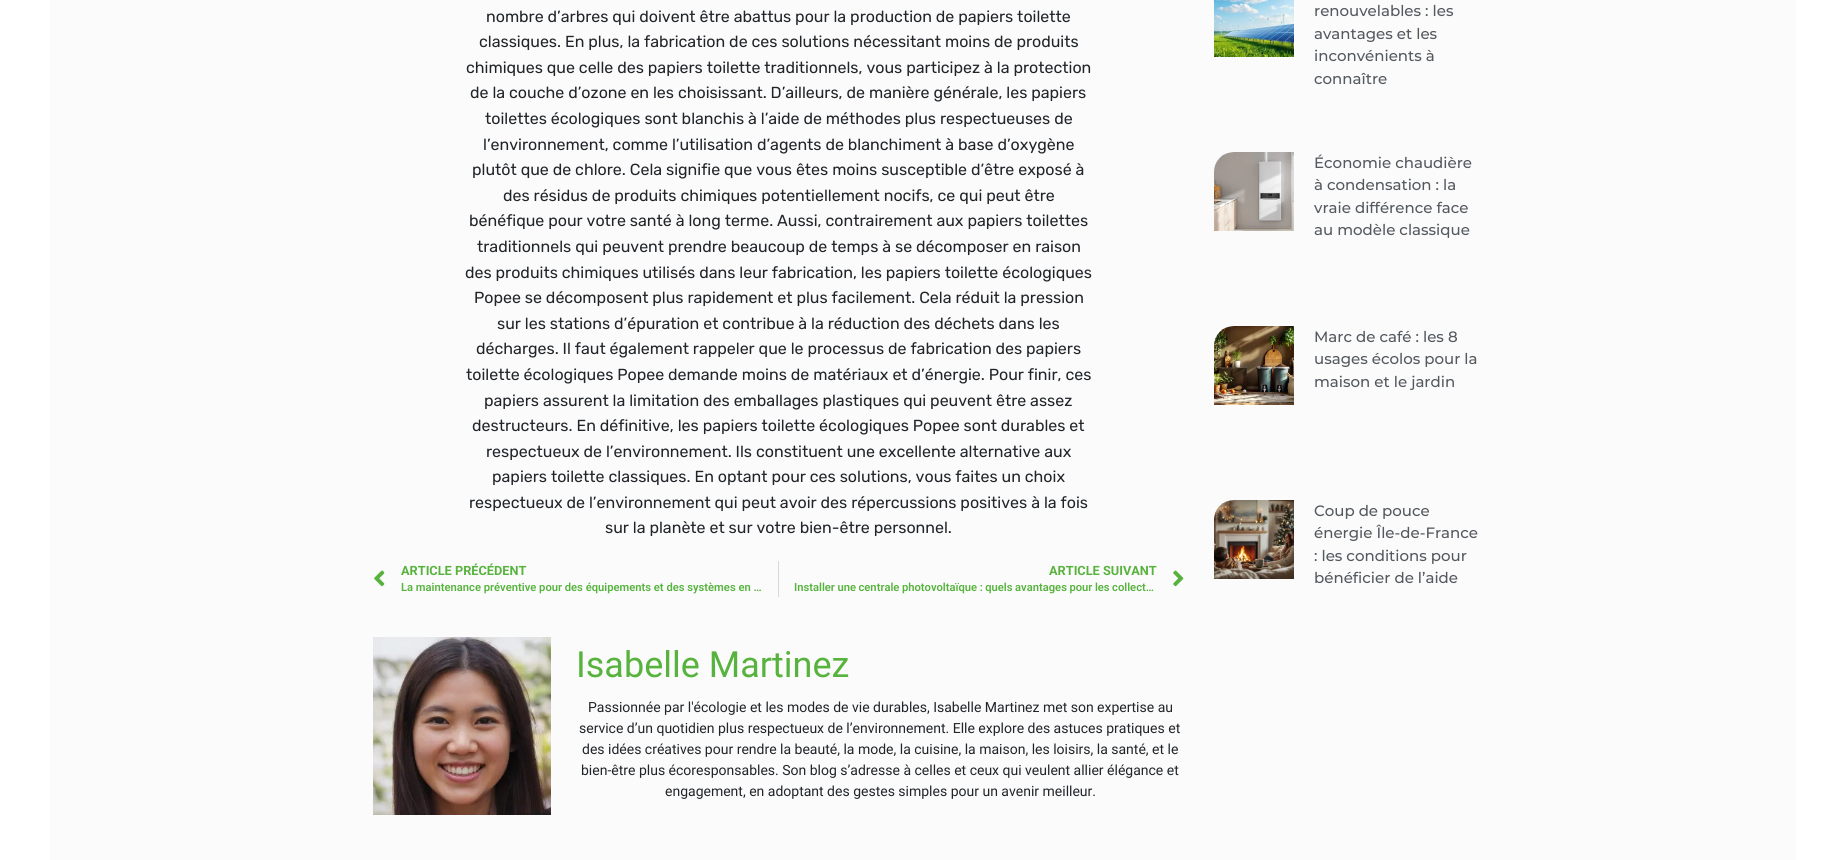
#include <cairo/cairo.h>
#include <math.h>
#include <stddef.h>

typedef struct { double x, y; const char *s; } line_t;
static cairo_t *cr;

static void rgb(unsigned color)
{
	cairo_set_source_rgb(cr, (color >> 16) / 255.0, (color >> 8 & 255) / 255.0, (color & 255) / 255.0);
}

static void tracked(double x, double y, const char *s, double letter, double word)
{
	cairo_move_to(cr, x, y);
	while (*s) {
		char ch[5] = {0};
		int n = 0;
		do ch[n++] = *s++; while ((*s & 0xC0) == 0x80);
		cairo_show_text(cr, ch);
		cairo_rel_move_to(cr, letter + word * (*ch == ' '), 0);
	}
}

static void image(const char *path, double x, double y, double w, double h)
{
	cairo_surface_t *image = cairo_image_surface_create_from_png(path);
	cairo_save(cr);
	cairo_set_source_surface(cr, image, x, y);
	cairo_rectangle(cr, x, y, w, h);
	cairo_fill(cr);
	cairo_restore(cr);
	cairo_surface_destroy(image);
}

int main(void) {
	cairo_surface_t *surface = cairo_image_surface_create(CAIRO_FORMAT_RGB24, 1846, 860);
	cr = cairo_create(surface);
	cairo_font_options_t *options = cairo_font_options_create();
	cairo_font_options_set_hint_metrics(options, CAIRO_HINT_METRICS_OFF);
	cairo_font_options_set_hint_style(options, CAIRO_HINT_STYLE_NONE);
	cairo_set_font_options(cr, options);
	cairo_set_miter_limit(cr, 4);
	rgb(0xffffff);
	cairo_paint(cr);
	rgb(0xfbfbfb);
	cairo_rectangle(cr, 50, 0, 1746, 860);
	cairo_fill(cr);
	image("img/1.png", 374, 570, 11, 17);
	rgb(0xd5d8dc);
	cairo_rectangle(cr, 778, 561, 1, 36);
	cairo_fill(cr);
	image("img/2.png", 1173, 570, 11, 17);
	image("img/3.png", 373, 637, 178, 178);
	image("img/4.png", 1214, 0, 80, 57);
	image("img/5.png", 1214, 152, 80, 79);
	image("img/6.png", 1214, 326, 80, 79);
	image("img/7.png", 1214, 500, 80, 79);
	cairo_select_font_face(cr, "Rubik", CAIRO_FONT_SLANT_NORMAL, CAIRO_FONT_WEIGHT_NORMAL);
	cairo_set_font_size(cr, 16);
	rgb(0x212529);
	{
		static const line_t items[] = {
			{486, 22, "nombre d’arbres qui doivent être abattus pour la production de papiers toilette"},
			{479, 47, "classiques. En plus, la fabrication de ces solutions nécessitant moins de produits"},
			{466, 73, "chimiques que celle des papiers toilette traditionnels, vous participez à la protection"},
			{470, 98, "de la couche d’ozone en les choisissant. D’ailleurs, de manière générale, les papiers"},
			{485, 124, "toilettes écologiques sont blanchis à l’aide de méthodes plus respectueuses de"},
			{483, 150, "l’environnement, comme l’utilisation d’agents de blanchiment à base d’oxygène"},
			{472, 175, "plutôt que de chlore. Cela signifie que vous êtes moins susceptible d’être exposé à"},
			{503, 201, "des résidus de produits chimiques potentiellement nocifs, ce qui peut être"},
			{469, 226, "bénéfique pour votre santé à long terme. Aussi, contrairement aux papiers toilettes"},
			{477, 252, "traditionnels qui peuvent prendre beaucoup de temps à se décomposer en raison"},
			{465, 278, "des produits chimiques utilisés dans leur fabrication, les papiers toilette écologiques"},
			{474, 303, "Popee se décomposent plus rapidement et plus facilement. Cela réduit la pression"},
			{497, 329, "sur les stations d’épuration et contribue à la réduction des déchets dans les"},
			{476, 354, "décharges. Il faut également rappeler que le processus de fabrication des papiers"},
			{466, 380, "toilette écologiques Popee demande moins de matériaux et d’énergie. Pour finir, ces"},
			{484, 406, "papiers assurent la limitation des emballages plastiques qui peuvent être assez"},
			{472, 431, "destructeurs. En définitive, les papiers toilette écologiques Popee sont durables et"},
			{486, 457, "respectueux de l’environnement. Ils constituent une excellente alternative aux"},
			{492, 482, "papiers toilette classiques. En optant pour ces solutions, vous faites un choix"},
			{469, 508, "respectueux de l’environnement qui peut avoir des répercussions positives à la fois"},
			{605, 533, "sur la planète et sur votre bien-être personnel."},
		};
		for (size_t i = 0; i < sizeof items / sizeof *items; i++) {
			cairo_move_to(cr, items[i].x, items[i].y);
			cairo_show_text(cr, items[i].s);
		}
	}
	cairo_select_font_face(cr, "Roboto", CAIRO_FONT_SLANT_NORMAL, CAIRO_FONT_WEIGHT_BOLD);
	cairo_set_font_size(cr, 12.75);
	rgb(0x57b33e);
	cairo_move_to(cr, 401, 575);
	cairo_show_text(cr, "ARTICLE PRÉCÉDENT");
	cairo_select_font_face(cr, "Roboto SemiBold", CAIRO_FONT_SLANT_NORMAL, CAIRO_FONT_WEIGHT_NORMAL);
	cairo_set_font_size(cr, 11.2);
	cairo_move_to(cr, 401, 591);
	cairo_show_text(cr, "La maintenance préventive pour des équipements et des systèmes en …");
	cairo_select_font_face(cr, "Roboto", CAIRO_FONT_SLANT_NORMAL, CAIRO_FONT_WEIGHT_BOLD);
	cairo_set_font_size(cr, 12.75);
	cairo_move_to(cr, 1049, 575);
	cairo_show_text(cr, "ARTICLE SUIVANT");
	cairo_select_font_face(cr, "Roboto SemiBold", CAIRO_FONT_SLANT_NORMAL, CAIRO_FONT_WEIGHT_NORMAL);
	cairo_set_font_size(cr, 11.2);
	tracked(794, 591, "Installer une centrale photovoltaïque : quels avantages pour les collect…", 0, -0.25);
	cairo_select_font_face(cr, "Roboto", CAIRO_FONT_SLANT_NORMAL, CAIRO_FONT_WEIGHT_NORMAL);
	cairo_set_font_size(cr, 36);
	cairo_move_to(cr, 576, 677);
	cairo_show_text(cr, "Isabelle Martinez");
	cairo_set_font_size(cr, 14);
	rgb(0x212529);
	{
		static const line_t items[] = {
			{588, 712, "Passionnée par l'écologie et les modes de vie durables, Isabelle Martinez met son expertise au"},
			{579, 733, "service d’un quotidien plus respectueux de l’environnement. Elle explore des astuces pratiques et"},
			{582, 754, "des idées créatives pour rendre la beauté, la mode, la cuisine, la maison, les loisirs, la santé, et le"},
			{581, 775, "bien-être plus écoresponsables. Son blog s’adresse à celles et ceux qui veulent allier élégance et"},
			{665, 796, "engagement, en adoptant des gestes simples pour un avenir meilleur."},
		};
		for (size_t i = 0; i < sizeof items / sizeof *items; i++) {
			cairo_move_to(cr, items[i].x, items[i].y);
			cairo_show_text(cr, items[i].s);
		}
	}
	cairo_select_font_face(cr, "Montserrat Medium", CAIRO_FONT_SLANT_NORMAL, CAIRO_FONT_WEIGHT_NORMAL);
	cairo_set_font_size(cr, 15);
	rgb(0x54595f);
	{
		static const line_t items[] = {
			{1314, 16, "renouvelables : les"},
			{1314, 39, "avantages et les"},
			{1314, 61, "inconvénients à"},
			{1314, 84, "connaître"},
			{1314, 168, "Économie chaudière"},
			{1314, 190, "à condensation : la"},
			{1314, 213, "vraie différence face"},
			{1314, 235, "au modèle classique"},
			{1314, 342, "Marc de café : les 8"},
			{1314, 364, "usages écolos pour la"},
			{1314, 387, "maison et le jardin"},
			{1314, 516, "Coup de pouce"},
			{1314, 538, "énergie Île-de-France"},
			{1314, 561, ": les conditions pour"},
			{1314, 583, "bénéficier de l’aide"},
		};
		for (size_t i = 0; i < sizeof items / sizeof *items; i++) {
			cairo_move_to(cr, items[i].x, items[i].y);
			cairo_show_text(cr, items[i].s);
		}
	}
	cairo_surface_write_to_png(surface, "page.png");
	cairo_font_options_destroy(options);
	cairo_destroy(cr);
	cairo_surface_destroy(surface);
	return 0;
}
